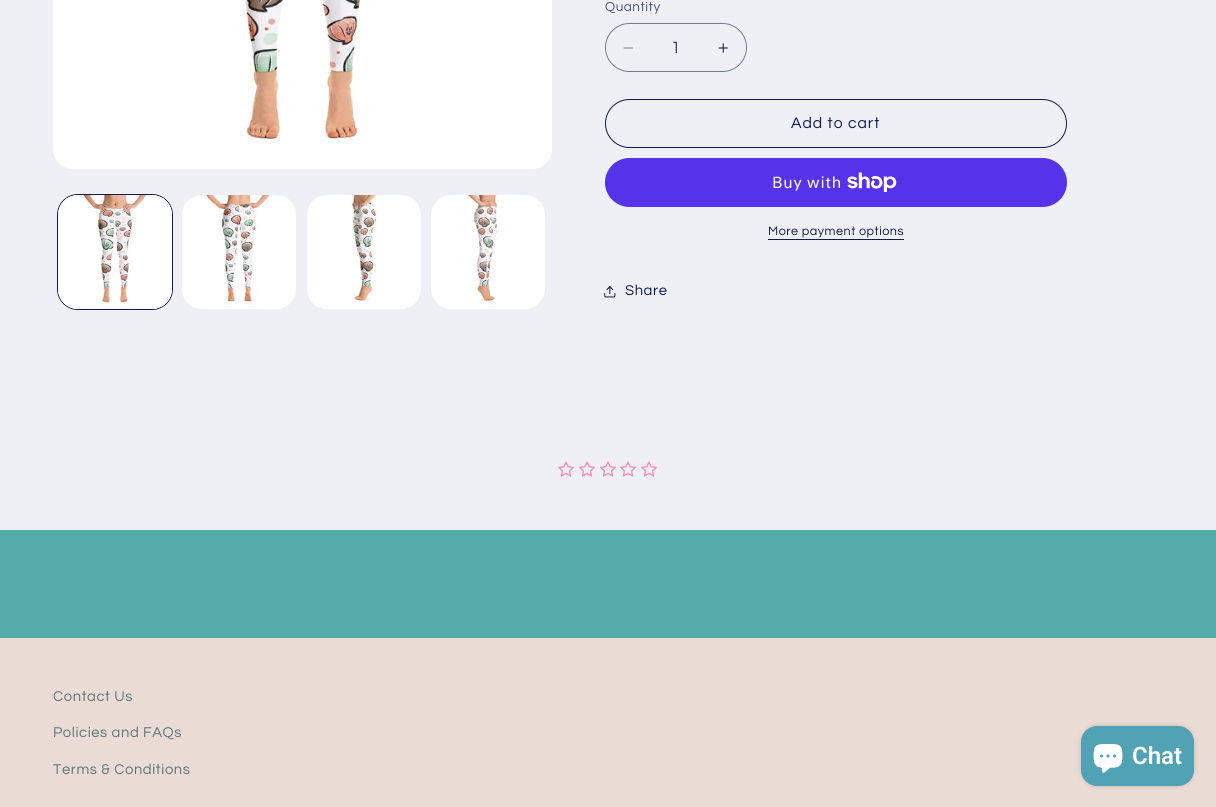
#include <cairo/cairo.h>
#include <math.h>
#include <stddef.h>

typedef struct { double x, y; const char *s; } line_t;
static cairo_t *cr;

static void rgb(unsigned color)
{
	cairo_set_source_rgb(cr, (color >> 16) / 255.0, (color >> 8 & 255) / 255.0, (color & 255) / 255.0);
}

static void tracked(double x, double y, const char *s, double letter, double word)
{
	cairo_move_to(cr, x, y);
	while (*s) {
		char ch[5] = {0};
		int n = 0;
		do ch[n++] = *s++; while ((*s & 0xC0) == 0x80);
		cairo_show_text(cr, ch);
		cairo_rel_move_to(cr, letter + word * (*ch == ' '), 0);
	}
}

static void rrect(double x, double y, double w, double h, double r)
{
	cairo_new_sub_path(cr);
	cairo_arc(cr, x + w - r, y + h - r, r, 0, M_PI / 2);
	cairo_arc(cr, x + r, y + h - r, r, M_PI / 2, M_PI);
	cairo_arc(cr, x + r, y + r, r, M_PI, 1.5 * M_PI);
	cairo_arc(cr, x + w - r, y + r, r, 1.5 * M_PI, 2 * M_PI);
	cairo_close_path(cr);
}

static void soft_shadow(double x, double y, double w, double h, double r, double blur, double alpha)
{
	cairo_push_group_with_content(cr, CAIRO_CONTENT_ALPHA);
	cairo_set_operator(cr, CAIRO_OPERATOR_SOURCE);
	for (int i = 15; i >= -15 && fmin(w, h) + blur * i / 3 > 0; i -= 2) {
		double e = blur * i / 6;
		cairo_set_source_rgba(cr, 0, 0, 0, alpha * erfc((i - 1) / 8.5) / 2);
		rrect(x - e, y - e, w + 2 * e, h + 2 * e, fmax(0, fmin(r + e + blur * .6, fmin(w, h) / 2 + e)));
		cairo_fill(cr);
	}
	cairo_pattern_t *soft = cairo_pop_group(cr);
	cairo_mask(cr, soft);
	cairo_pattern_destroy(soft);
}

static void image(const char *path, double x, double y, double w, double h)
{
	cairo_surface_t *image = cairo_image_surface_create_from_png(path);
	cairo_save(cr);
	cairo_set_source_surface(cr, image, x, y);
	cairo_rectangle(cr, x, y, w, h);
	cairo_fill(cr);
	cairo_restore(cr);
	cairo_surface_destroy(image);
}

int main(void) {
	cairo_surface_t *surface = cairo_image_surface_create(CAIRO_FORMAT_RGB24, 1216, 807);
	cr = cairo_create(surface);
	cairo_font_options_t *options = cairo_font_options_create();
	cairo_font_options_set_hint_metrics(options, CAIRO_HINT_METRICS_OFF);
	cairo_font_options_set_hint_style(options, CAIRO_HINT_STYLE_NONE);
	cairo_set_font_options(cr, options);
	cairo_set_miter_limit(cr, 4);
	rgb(0xeff0f5);
	cairo_paint(cr);
	image("img/1.png", 53, 0, 499, 169);
	rrect(57.5, 194.5, 115, 115, 20.5);
	rgb(0x0e1b4d);
	cairo_set_line_width(cr, 1);
	cairo_stroke(cr);
	image("img/2.png", 58, 195, 114, 114);
	image("img/3.png", 182, 195, 114, 114);
	image("img/4.png", 307, 195, 114, 114);
	image("img/5.png", 431, 195, 114, 114);
	image("img/6.png", 623, 47, 10, 2);
	image("img/7.png", 718, 43, 10, 10);
	rrect(605.5, 23.5, 141, 48, 24);
	rgb(0x737b99);
	cairo_stroke(cr);
	rrect(605.5, 99.5, 461, 48, 24);
	rgb(0x0e1b4d);
	cairo_stroke(cr);
	rgb(0x5433eb);
	rrect(605, 158, 462, 49, 24.5);
	cairo_fill(cr);
	image("img/8.png", 847, 172, 50, 20);
	rgb(0x0e1b4d);
	cairo_rectangle(cr, 768, 239, 136, 1);
	cairo_fill(cr);
	image("img/9.png", 604, 286, 12, 12);
	image("img/10.png", 558, 461, 16, 16);
	image("img/10.png", 579, 461, 16, 16);
	image("img/10.png", 600, 461, 16, 16);
	image("img/10.png", 620, 461, 16, 16);
	image("img/10.png", 641, 461, 16, 16);
	rgb(0x53aba9);
	cairo_rectangle(cr, 0, 530, 1216, 108);
	cairo_fill(cr);
	rgb(0xeadbd4);
	cairo_rectangle(cr, 0, 638, 1216, 169);
	cairo_fill(cr);
	rgb(0x000000);
	soft_shadow(1081, 726, 113, 60, 16, 2.5, 0.15);
	rgb(0x50a2b4);
	rrect(1081, 726, 113, 60, 16);
	cairo_fill(cr);
	image("img/11.png", 1093, 744, 30, 29);
	cairo_select_font_face(cr, "Questrial", CAIRO_FONT_SLANT_NORMAL, CAIRO_FONT_WEIGHT_NORMAL);
	cairo_set_font_size(cr, 13.5);
	rgb(0x465077);
	tracked(605, 11, "Quantity", 0.5, 0);
	cairo_set_font_size(cr, 17);
	rgb(0x303b66);
	cairo_move_to(cr, 671, 53);
	cairo_show_text(cr, "1");
	cairo_set_font_size(cr, 15.75);
	rgb(0x0e1b4d);
	tracked(791, 128, "Add to cart", 1, 0);
	cairo_select_font_face(cr, "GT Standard", CAIRO_FONT_SLANT_NORMAL, CAIRO_FONT_WEIGHT_NORMAL);
	cairo_set_font_size(cr, 16);
	rgb(0xffffff);
	tracked(772, 188, "Buy with", 0.6, 0);
	cairo_select_font_face(cr, "Questrial", CAIRO_FONT_SLANT_NORMAL, CAIRO_FONT_WEIGHT_NORMAL);
	cairo_set_font_size(cr, 12.6);
	rgb(0x0e1b4d);
	tracked(768, 235, "More payment options", 0.5, 0);
	cairo_set_font_size(cr, 14.75);
	tracked(625, 295, "Share", 0.6, 0);
	rgb(0x5a757d);
	{
		static const line_t items[] = {
			{53, 701, "Contact Us"},
			{53, 737, "Policies and FAQs"},
			{53, 774, "Terms & Conditions"},
		};
		for (size_t i = 0; i < sizeof items / sizeof *items; i++) {
			tracked(items[i].x, items[i].y, items[i].s, 0.6, 0);
		}
	}
	cairo_select_font_face(cr, "Roboto SemiBold", CAIRO_FONT_SLANT_NORMAL, CAIRO_FONT_WEIGHT_NORMAL);
	cairo_set_font_size(cr, 24);
	rgb(0xffffff);
	cairo_move_to(cr, 1132, 764);
	cairo_show_text(cr, "Chat");
	cairo_surface_write_to_png(surface, "page.png");
	cairo_font_options_destroy(options);
	cairo_destroy(cr);
	cairo_surface_destroy(surface);
	return 0;
}
